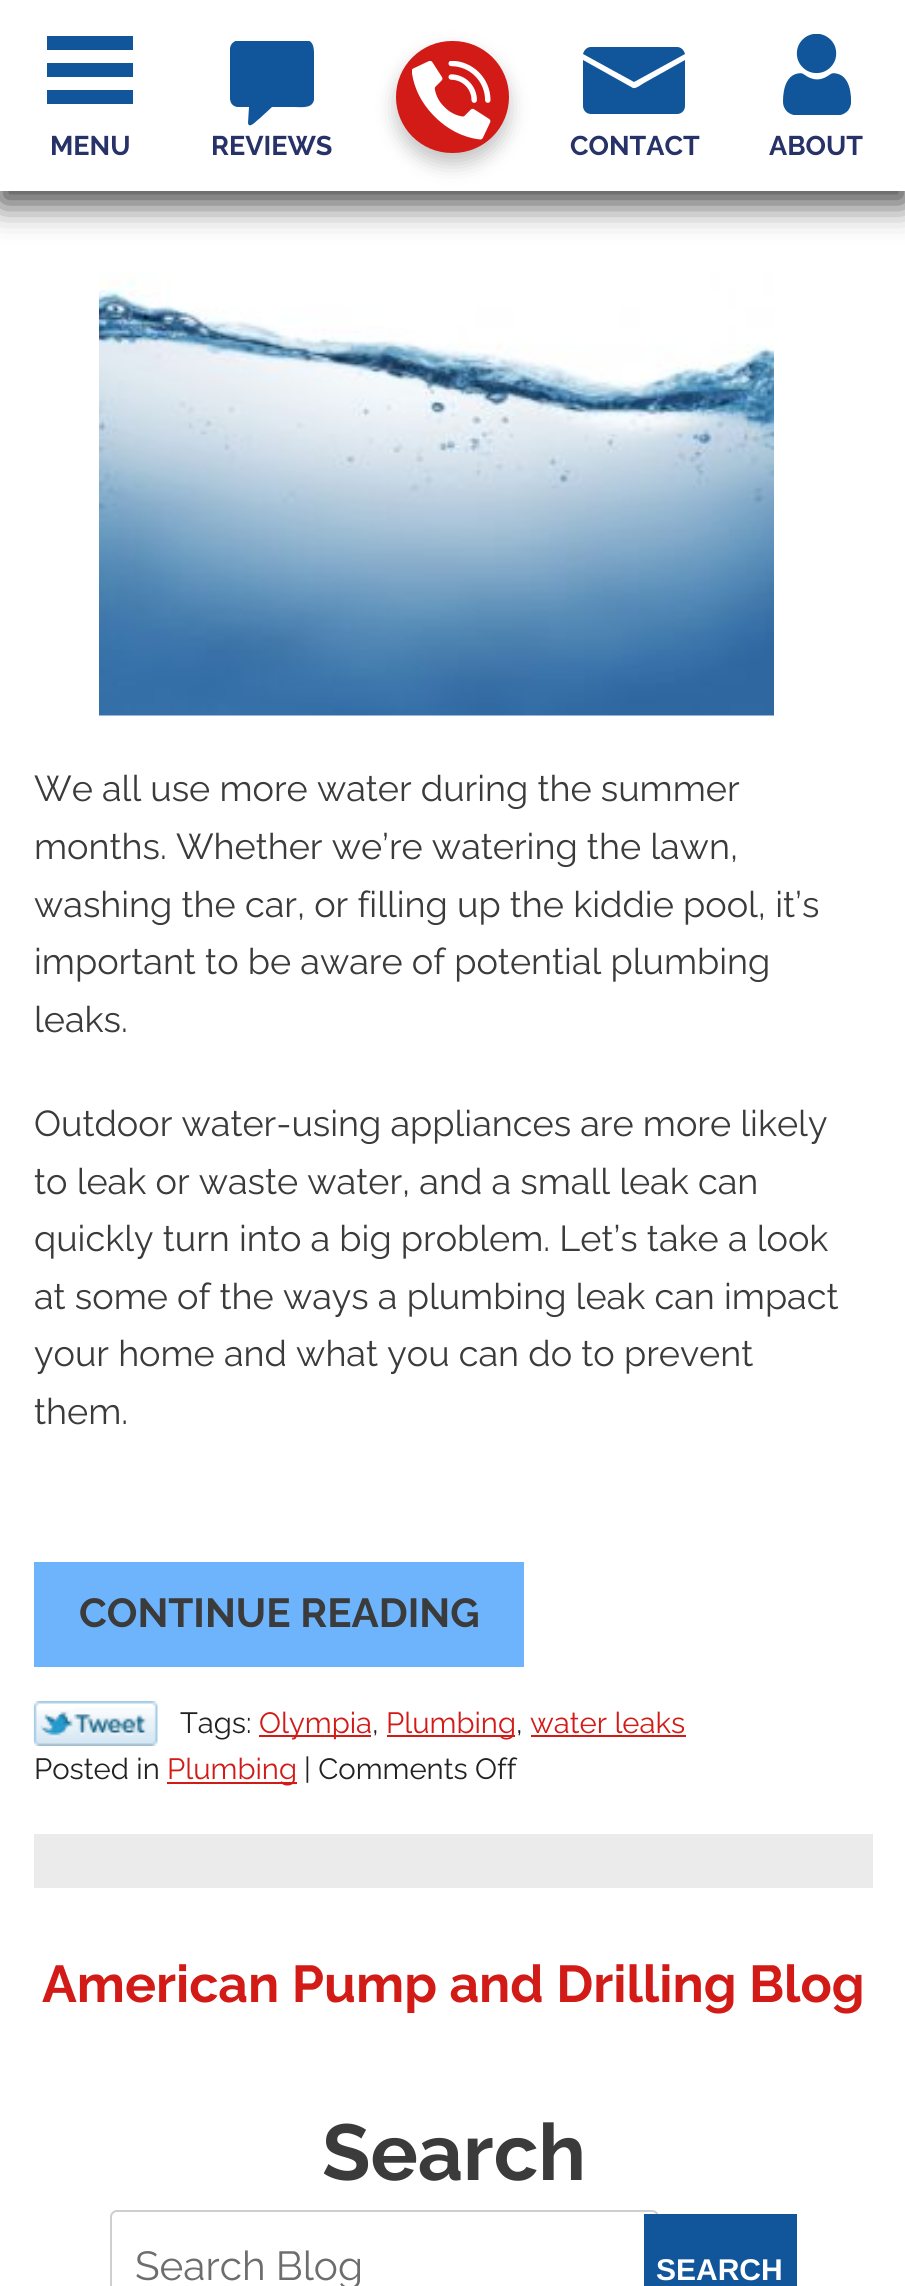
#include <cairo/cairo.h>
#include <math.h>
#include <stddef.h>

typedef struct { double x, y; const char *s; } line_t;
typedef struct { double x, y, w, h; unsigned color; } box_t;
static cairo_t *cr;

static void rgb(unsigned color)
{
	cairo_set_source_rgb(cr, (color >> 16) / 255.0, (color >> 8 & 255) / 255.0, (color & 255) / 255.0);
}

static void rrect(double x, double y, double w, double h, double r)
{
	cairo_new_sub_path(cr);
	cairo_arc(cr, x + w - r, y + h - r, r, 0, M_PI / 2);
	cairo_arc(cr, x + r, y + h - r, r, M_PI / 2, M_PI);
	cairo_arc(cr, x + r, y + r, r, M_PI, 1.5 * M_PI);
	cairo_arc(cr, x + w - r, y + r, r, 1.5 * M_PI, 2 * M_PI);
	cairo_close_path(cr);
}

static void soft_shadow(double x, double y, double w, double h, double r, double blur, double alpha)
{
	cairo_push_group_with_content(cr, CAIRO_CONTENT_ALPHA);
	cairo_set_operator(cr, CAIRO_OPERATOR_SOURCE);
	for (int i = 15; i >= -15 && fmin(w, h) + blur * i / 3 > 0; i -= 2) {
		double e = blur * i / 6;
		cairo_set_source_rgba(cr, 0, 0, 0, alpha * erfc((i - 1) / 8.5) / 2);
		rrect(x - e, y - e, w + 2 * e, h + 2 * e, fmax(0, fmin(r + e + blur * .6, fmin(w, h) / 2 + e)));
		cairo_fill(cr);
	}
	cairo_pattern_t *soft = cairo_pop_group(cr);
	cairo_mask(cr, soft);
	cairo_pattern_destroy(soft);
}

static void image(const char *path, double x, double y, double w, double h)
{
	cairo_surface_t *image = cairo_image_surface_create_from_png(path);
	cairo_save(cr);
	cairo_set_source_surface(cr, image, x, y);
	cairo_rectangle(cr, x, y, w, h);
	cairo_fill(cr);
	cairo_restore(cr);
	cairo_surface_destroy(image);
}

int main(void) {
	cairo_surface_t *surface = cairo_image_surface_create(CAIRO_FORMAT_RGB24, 905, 2286);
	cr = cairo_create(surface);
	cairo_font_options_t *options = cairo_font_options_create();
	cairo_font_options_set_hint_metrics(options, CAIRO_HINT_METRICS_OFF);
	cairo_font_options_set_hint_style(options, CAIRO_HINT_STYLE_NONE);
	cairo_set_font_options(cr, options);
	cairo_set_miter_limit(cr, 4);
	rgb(0xffffff);
	cairo_paint(cr);
	rgb(0x000000);
	soft_shadow(0, 11, 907, 192, 0, 17, 0.75);
	{
		static const box_t items[] = {
			{0, 0, 905, 191, 0xffffff},
			{47, 63, 86, 14, 0x11569b},
			{47, 36, 86, 14, 0x11569b},
			{47, 90, 86, 14, 0x11569b},
		};
		for (size_t i = 0; i < sizeof items / sizeof *items; i++) {
			rgb(items[i].color);
			cairo_rectangle(cr, items[i].x, items[i].y, items[i].w, items[i].h);
			cairo_fill(cr);
		}
	}
	cairo_save(cr);
	cairo_rectangle(cr, 230, 41, 85, 85);
	cairo_clip(cr);
	cairo_new_path(cr);
	cairo_move_to(cr, 305, 40);
	cairo_line_to(cr, 250, 40);
	cairo_curve_to(cr, 243, 40, 232, 38, 230, 48);
	cairo_line_to(cr, 230, 90);
	cairo_curve_to(cr, 230, 96, 228, 105, 237, 107);
	cairo_line_to(cr, 249, 107);
	cairo_line_to(cr, 248, 123);
	cairo_curve_to(cr, 249, 130, 258, 119, 259, 119);
	cairo_line_to(cr, 272, 107);
	cairo_line_to(cr, 294, 107);
	cairo_curve_to(cr, 301, 107, 312, 109, 314, 100);
	cairo_line_to(cr, 314, 58);
	cairo_curve_to(cr, 314, 51, 315, 40, 305, 40);
	cairo_close_path(cr);
	cairo_fill(cr);
	cairo_restore(cr);
	rgb(0x000000);
	soft_shadow(396, 52, 113, 112, 56, 10, 0.24);
	rgb(0xd21a16);
	rrect(396, 41, 113, 112, 56);
	cairo_fill(cr);
	image("img/1.png", 412, 61, 79, 79);
	rgb(0x11569b);
	cairo_new_path(cr);
	cairo_move_to(cr, 591, 47);
	cairo_line_to(cr, 677, 47);
	cairo_curve_to(cr, 681, 47, 684, 50, 685, 54);
	cairo_line_to(cr, 634, 82);
	cairo_line_to(cr, 583, 54);
	cairo_curve_to(cr, 584, 50, 587, 47, 591, 47);
	cairo_close_path(cr);
	cairo_move_to(cr, 677, 114);
	cairo_line_to(cr, 591, 114);
	cairo_curve_to(cr, 586, 114, 583, 110, 583, 106);
	cairo_line_to(cr, 583, 60);
	cairo_line_to(cr, 633, 88);
	cairo_curve_to(cr, 636, 89, 642, 84, 644, 83);
	cairo_line_to(cr, 685, 60);
	cairo_line_to(cr, 685, 106);
	cairo_curve_to(cr, 685, 110, 682, 114, 677, 114);
	cairo_close_path(cr);
	cairo_fill(cr);
	image("img/2.png", 783, 34, 68, 81);
	image("img/3.png", 99, 272, 675, 444);
	rgb(0x6db4fc);
	cairo_rectangle(cr, 34, 1562, 490, 105);
	cairo_fill(cr);
	image("img/4.png", 33, 1701, 125, 45);
	{
		static const box_t items[] = {
			{259, 1735, 112, 2, 0xd21a16},
			{387, 1735, 128, 2, 0xd21a16},
			{531, 1735, 155, 2, 0xd21a16},
			{167, 1782, 130, 2, 0xd21a16},
			{34, 1834, 839, 54, 0xebebeb},
		};
		for (size_t i = 0; i < sizeof items / sizeof *items; i++) {
			rgb(items[i].color);
			cairo_rectangle(cr, items[i].x, items[i].y, items[i].w, items[i].h);
			cairo_fill(cr);
		}
	}
	rrect(111, 2211, 547, 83, 6);
	rgb(0xcecece);
	cairo_stroke(cr);
	rgb(0x11569b);
	cairo_rectangle(cr, 644, 2214, 153, 72);
	cairo_fill(cr);
	cairo_select_font_face(cr, "Raleway", CAIRO_FONT_SLANT_NORMAL, CAIRO_FONT_WEIGHT_BOLD);
	cairo_set_font_size(cr, 27);
	rgb(0x263268);
	{
		static const line_t items[] = {
			{50, 155, "MENU"},
			{211, 155, "REVIEWS"},
			{570, 155, "CONTACT"},
			{769, 155, "ABOUT"},
		};
		for (size_t i = 0; i < sizeof items / sizeof *items; i++) {
			cairo_move_to(cr, items[i].x, items[i].y);
			cairo_show_text(cr, items[i].s);
		}
	}
	cairo_select_font_face(cr, "Raleway", CAIRO_FONT_SLANT_NORMAL, CAIRO_FONT_WEIGHT_NORMAL);
	cairo_set_font_size(cr, 36);
	rgb(0x3b3b3b);
	{
		static const line_t items[] = {
			{34, 801, "We all use more water during the summer"},
			{34, 859, "months. Whether we’re watering the lawn,"},
			{34, 917, "washing the car, or filling up the kiddie pool, it’s"},
			{34, 974, "important to be aware of potential plumbing"},
			{34, 1032, "leaks."},
			{34, 1136, "Outdoor water-using appliances are more likely"},
			{34, 1194, "to leak or waste water, and a small leak can"},
			{34, 1251, "quickly turn into a big problem. Let’s take a look"},
			{34, 1309, "at some of the ways a plumbing leak can impact"},
			{34, 1366, "your home and what you can do to prevent"},
			{34, 1424, "them."},
		};
		for (size_t i = 0; i < sizeof items / sizeof *items; i++) {
			cairo_move_to(cr, items[i].x, items[i].y);
			cairo_show_text(cr, items[i].s);
		}
	}
	cairo_select_font_face(cr, "Raleway", CAIRO_FONT_SLANT_NORMAL, CAIRO_FONT_WEIGHT_BOLD);
	cairo_set_font_size(cr, 40.5);
	cairo_move_to(cr, 79, 1627);
	cairo_show_text(cr, "CONTINUE READING");
	cairo_select_font_face(cr, "Raleway", CAIRO_FONT_SLANT_NORMAL, CAIRO_FONT_WEIGHT_NORMAL);
	cairo_set_font_size(cr, 29.25);
	rgb(0x222222);
	cairo_move_to(cr, 180, 1733);
	cairo_show_text(cr, "Tags:");
	rgb(0xd21a16);
	cairo_move_to(cr, 259, 1733);
	cairo_show_text(cr, "Olympia");
	rgb(0x222222);
	cairo_move_to(cr, 372, 1733);
	cairo_show_text(cr, ",");
	rgb(0xd21a16);
	cairo_move_to(cr, 386, 1733);
	cairo_show_text(cr, "Plumbing");
	rgb(0x222222);
	cairo_move_to(cr, 516, 1733);
	cairo_show_text(cr, ",");
	rgb(0xd21a16);
	cairo_move_to(cr, 530, 1733);
	cairo_show_text(cr, "water leaks");
	rgb(0x222222);
	cairo_move_to(cr, 34, 1779);
	cairo_show_text(cr, "Posted in");
	rgb(0xd21a16);
	cairo_move_to(cr, 167, 1779);
	cairo_show_text(cr, "Plumbing");
	rgb(0x222222);
	cairo_move_to(cr, 304, 1779);
	cairo_show_text(cr, "| Comments Off");
	cairo_select_font_face(cr, "Raleway", CAIRO_FONT_SLANT_NORMAL, CAIRO_FONT_WEIGHT_BOLD);
	cairo_set_font_size(cr, 51.75);
	rgb(0xd21a16);
	cairo_move_to(cr, 42, 2002);
	cairo_show_text(cr, "American Pump and Drilling Blog");
	cairo_set_font_size(cr, 79);
	rgb(0x3b3b3b);
	cairo_move_to(cr, 322, 2180);
	cairo_show_text(cr, "Search");
	cairo_select_font_face(cr, "Raleway", CAIRO_FONT_SLANT_NORMAL, CAIRO_FONT_WEIGHT_NORMAL);
	cairo_set_font_size(cr, 40.5);
	rgb(0x6d6d6d);
	cairo_move_to(cr, 135, 2280);
	cairo_show_text(cr, "Search Blog");
	cairo_select_font_face(cr, "Liberation Sans", CAIRO_FONT_SLANT_NORMAL, CAIRO_FONT_WEIGHT_BOLD);
	cairo_set_font_size(cr, 30);
	rgb(0xffffff);
	cairo_move_to(cr, 656, 2280);
	cairo_show_text(cr, "SEARCH");
	cairo_surface_write_to_png(surface, "page.png");
	cairo_font_options_destroy(options);
	cairo_destroy(cr);
	cairo_surface_destroy(surface);
	return 0;
}
